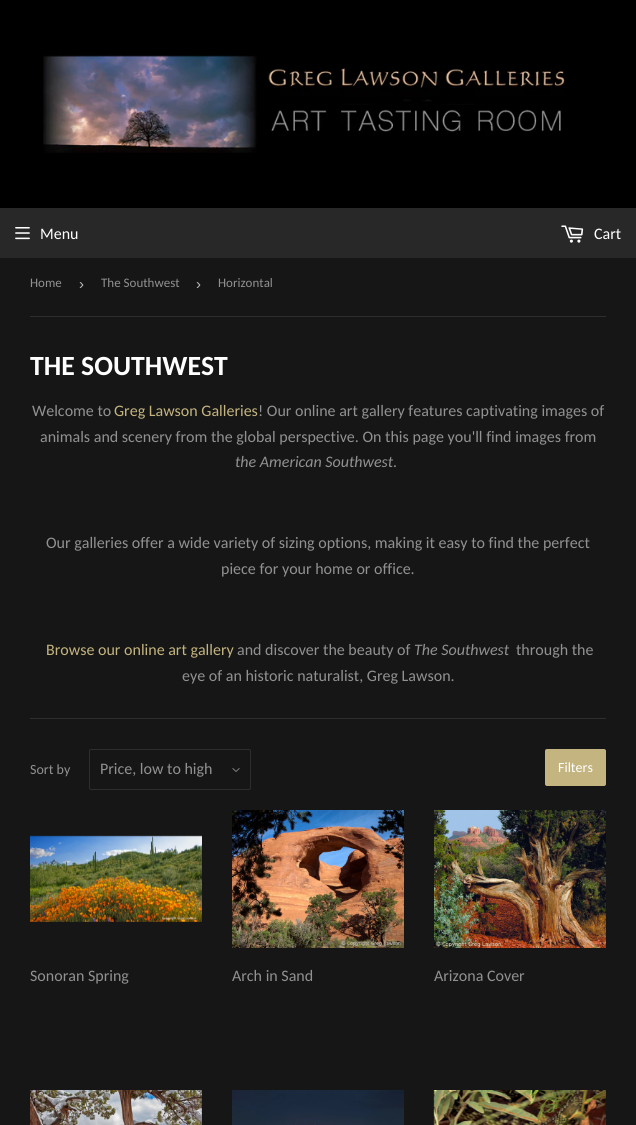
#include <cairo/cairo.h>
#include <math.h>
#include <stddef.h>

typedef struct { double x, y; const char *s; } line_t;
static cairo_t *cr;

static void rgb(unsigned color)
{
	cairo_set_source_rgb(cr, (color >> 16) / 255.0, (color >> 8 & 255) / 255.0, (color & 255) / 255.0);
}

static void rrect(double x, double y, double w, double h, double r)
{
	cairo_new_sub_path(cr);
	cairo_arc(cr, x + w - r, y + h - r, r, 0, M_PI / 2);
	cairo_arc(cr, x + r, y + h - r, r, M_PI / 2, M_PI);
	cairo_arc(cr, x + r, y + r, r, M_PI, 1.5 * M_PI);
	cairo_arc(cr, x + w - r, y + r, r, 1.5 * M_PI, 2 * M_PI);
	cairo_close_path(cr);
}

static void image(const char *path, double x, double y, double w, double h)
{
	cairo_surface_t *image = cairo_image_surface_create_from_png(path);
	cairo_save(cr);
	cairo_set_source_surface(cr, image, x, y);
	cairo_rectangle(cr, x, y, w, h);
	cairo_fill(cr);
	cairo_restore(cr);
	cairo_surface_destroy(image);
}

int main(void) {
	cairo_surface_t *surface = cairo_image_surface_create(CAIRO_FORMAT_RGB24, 636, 1125);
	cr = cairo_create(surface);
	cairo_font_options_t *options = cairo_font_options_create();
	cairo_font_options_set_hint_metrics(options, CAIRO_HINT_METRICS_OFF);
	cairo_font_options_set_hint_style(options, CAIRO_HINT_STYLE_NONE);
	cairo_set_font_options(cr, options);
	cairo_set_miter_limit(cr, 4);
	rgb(0x161616);
	cairo_paint(cr);
	rgb(0x000000);
	cairo_rectangle(cr, 0, 0, 636, 208);
	cairo_fill(cr);
	image("img/1.png", 43, 55, 522, 98);
	rgb(0x282828);
	cairo_rectangle(cr, 0, 208, 636, 50);
	cairo_fill(cr);
	image("img/2.png", 15, 227, 15, 13);
	image("img/3.png", 561, 225, 23, 18);
	rgb(0x2e2e2e);
	cairo_rectangle(cr, 30, 316, 576, 1);
	cairo_fill(cr);
	cairo_rectangle(cr, 30, 718, 576, 1);
	cairo_fill(cr);
	image("img/4.png", 232, 768, 8, 4);
	rrect(89.5, 749.5, 161, 40, 1.5);
	cairo_set_line_width(cr, 1);
	cairo_stroke(cr);
	rgb(0xc4b47f);
	rrect(545, 749, 61, 37, 2);
	cairo_fill(cr);
	image("img/5.png", 30, 835, 172, 87);
	image("img/6.png", 232, 810, 172, 138);
	image("img/7.png", 434, 810, 172, 138);
	image("img/8.png", 30, 1090, 172, 35);
	image("img/9.png", 232, 1090, 172, 35);
	image("img/10.png", 433, 1090, 173, 35);
	cairo_select_font_face(cr, "Carlito", CAIRO_FONT_SLANT_NORMAL, CAIRO_FONT_WEIGHT_NORMAL);
	cairo_set_font_size(cr, 16);
	rgb(0xffffff);
	cairo_move_to(cr, 40, 239);
	cairo_show_text(cr, "Menu");
	cairo_move_to(cr, 594, 239);
	cairo_show_text(cr, "Cart");
	cairo_set_font_size(cr, 13);
	rgb(0x919191);
	cairo_move_to(cr, 30, 287);
	cairo_show_text(cr, "Home");
	cairo_select_font_face(cr, "Liberation Sans", CAIRO_FONT_SLANT_NORMAL, CAIRO_FONT_WEIGHT_NORMAL);
	cairo_set_font_size(cr, 15);
	rgb(0xbbbbbb);
	cairo_move_to(cr, 79, 289);
	cairo_show_text(cr, "›");
	cairo_select_font_face(cr, "Carlito", CAIRO_FONT_SLANT_NORMAL, CAIRO_FONT_WEIGHT_NORMAL);
	cairo_set_font_size(cr, 13);
	rgb(0x919191);
	cairo_move_to(cr, 101, 287);
	cairo_show_text(cr, "The Southwest");
	cairo_select_font_face(cr, "Liberation Sans", CAIRO_FONT_SLANT_NORMAL, CAIRO_FONT_WEIGHT_NORMAL);
	cairo_set_font_size(cr, 15);
	rgb(0xbbbbbb);
	cairo_move_to(cr, 196, 289);
	cairo_show_text(cr, "›");
	cairo_select_font_face(cr, "Carlito", CAIRO_FONT_SLANT_NORMAL, CAIRO_FONT_WEIGHT_NORMAL);
	cairo_set_font_size(cr, 13);
	rgb(0x919191);
	cairo_move_to(cr, 218, 287);
	cairo_show_text(cr, "Horizontal");
	cairo_select_font_face(cr, "Carlito", CAIRO_FONT_SLANT_NORMAL, CAIRO_FONT_WEIGHT_BOLD);
	cairo_set_font_size(cr, 27.75);
	rgb(0xffffff);
	cairo_move_to(cr, 30, 375);
	cairo_show_text(cr, "THE SOUTHWEST");
	cairo_select_font_face(cr, "Carlito", CAIRO_FONT_SLANT_NORMAL, CAIRO_FONT_WEIGHT_NORMAL);
	cairo_set_font_size(cr, 16);
	rgb(0x919191);
	cairo_move_to(cr, 32, 416);
	cairo_show_text(cr, "Welcome to");
	rgb(0xc4b47f);
	cairo_move_to(cr, 114, 416);
	cairo_show_text(cr, "Greg Lawson Galleries");
	rgb(0x919191);
	cairo_move_to(cr, 258, 416);
	cairo_show_text(cr, "! Our online art gallery features captivating images of");
	cairo_move_to(cr, 40, 442);
	cairo_show_text(cr, "animals and scenery from the global perspective. On this page you'll find images from");
	cairo_select_font_face(cr, "Carlito", CAIRO_FONT_SLANT_ITALIC, CAIRO_FONT_WEIGHT_NORMAL);
	cairo_move_to(cr, 235, 467);
	cairo_show_text(cr, "the American Southwest.");
	cairo_select_font_face(cr, "Carlito", CAIRO_FONT_SLANT_NORMAL, CAIRO_FONT_WEIGHT_NORMAL);
	cairo_move_to(cr, 46, 548);
	cairo_show_text(cr, "Our galleries offer a wide variety of sizing options, making it easy to find the perfect");
	cairo_move_to(cr, 221, 574);
	cairo_show_text(cr, "piece for your home or office.");
	rgb(0xc4b47f);
	cairo_move_to(cr, 46, 655);
	cairo_show_text(cr, "Browse our online art gallery");
	rgb(0x919191);
	cairo_move_to(cr, 237, 655);
	cairo_show_text(cr, "and discover the beauty of");
	cairo_select_font_face(cr, "Carlito", CAIRO_FONT_SLANT_ITALIC, CAIRO_FONT_WEIGHT_NORMAL);
	cairo_move_to(cr, 414, 655);
	cairo_show_text(cr, "The Southwest");
	cairo_select_font_face(cr, "Carlito", CAIRO_FONT_SLANT_NORMAL, CAIRO_FONT_WEIGHT_NORMAL);
	cairo_move_to(cr, 516, 655);
	cairo_show_text(cr, "through the");
	cairo_move_to(cr, 182, 681);
	cairo_show_text(cr, "eye of an historic naturalist, Greg Lawson.");
	cairo_set_font_size(cr, 14);
	cairo_move_to(cr, 30, 774);
	cairo_show_text(cr, "Sort by");
	cairo_set_font_size(cr, 16);
	cairo_move_to(cr, 100, 774);
	cairo_show_text(cr, "Price, low to high");
	cairo_set_font_size(cr, 14);
	rgb(0xffffff);
	cairo_move_to(cr, 558, 772);
	cairo_show_text(cr, "Filters");
	cairo_set_font_size(cr, 16);
	rgb(0x919191);
	{
		static const line_t items[] = {
			{30, 981, "Sonoran Spring"},
			{232, 981, "Arch in Sand"},
			{434, 981, "Arizona Cover"},
		};
		for (size_t i = 0; i < sizeof items / sizeof *items; i++) {
			cairo_move_to(cr, items[i].x, items[i].y);
			cairo_show_text(cr, items[i].s);
		}
	}
	cairo_surface_write_to_png(surface, "page.png");
	cairo_font_options_destroy(options);
	cairo_destroy(cr);
	cairo_surface_destroy(surface);
	return 0;
}
